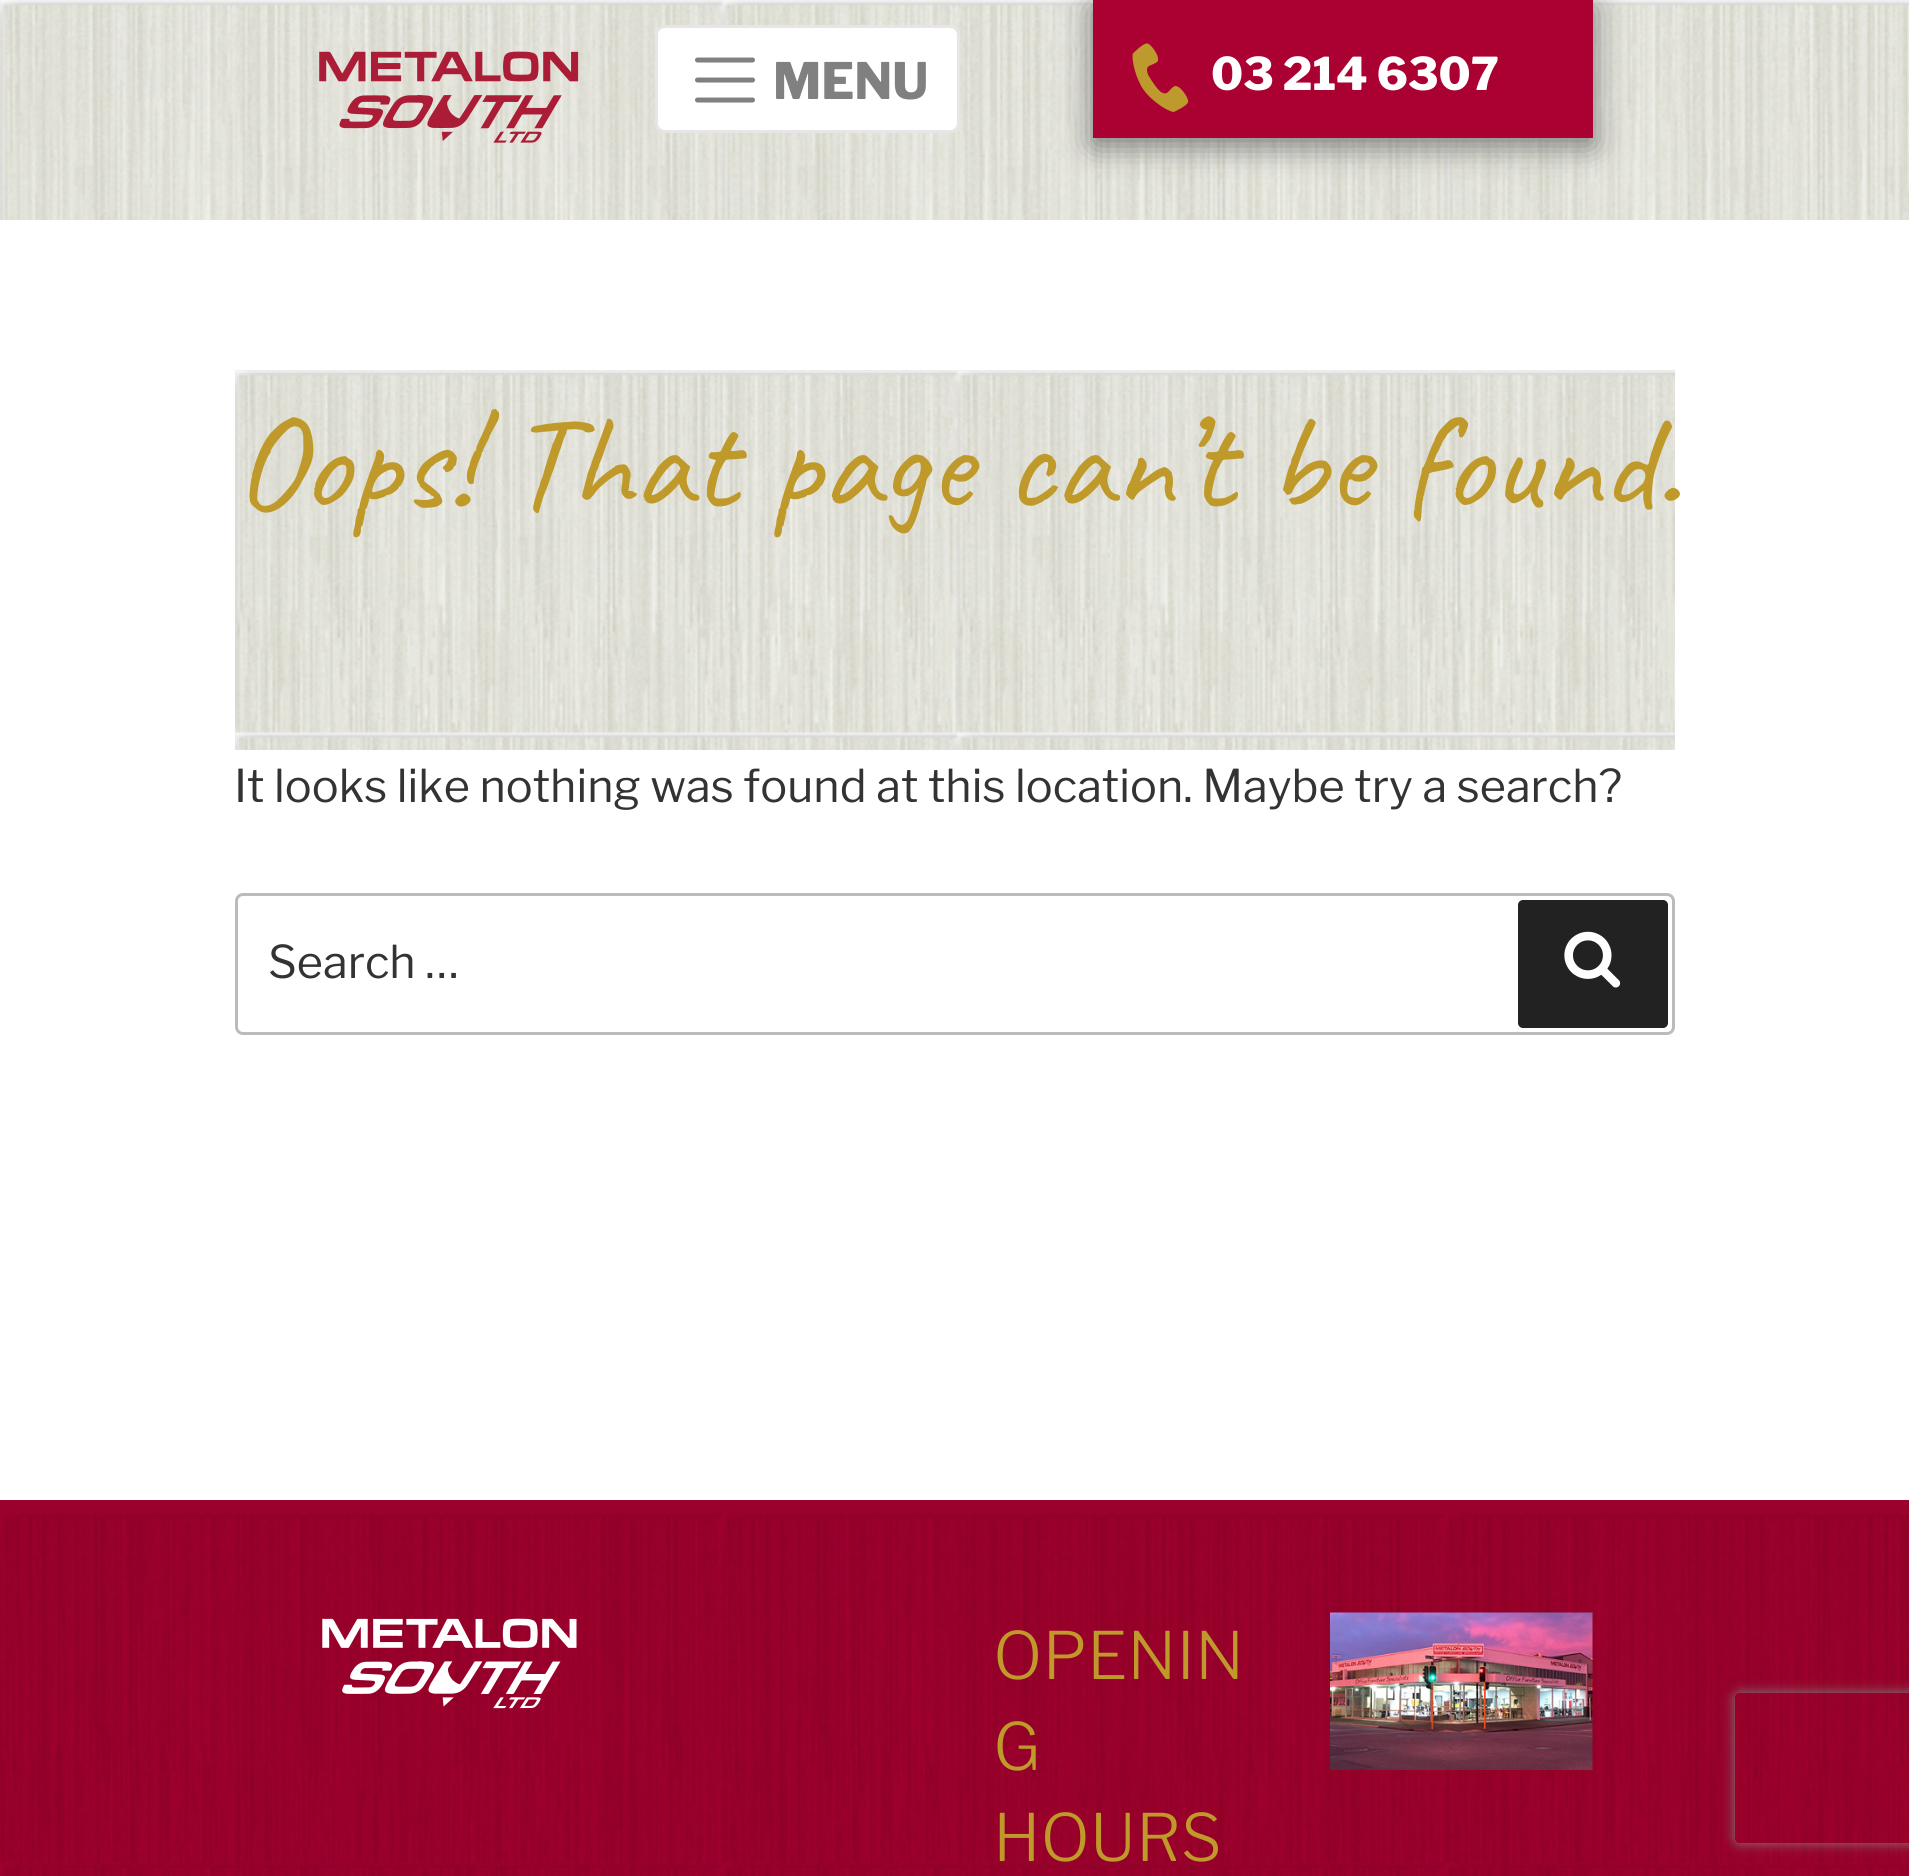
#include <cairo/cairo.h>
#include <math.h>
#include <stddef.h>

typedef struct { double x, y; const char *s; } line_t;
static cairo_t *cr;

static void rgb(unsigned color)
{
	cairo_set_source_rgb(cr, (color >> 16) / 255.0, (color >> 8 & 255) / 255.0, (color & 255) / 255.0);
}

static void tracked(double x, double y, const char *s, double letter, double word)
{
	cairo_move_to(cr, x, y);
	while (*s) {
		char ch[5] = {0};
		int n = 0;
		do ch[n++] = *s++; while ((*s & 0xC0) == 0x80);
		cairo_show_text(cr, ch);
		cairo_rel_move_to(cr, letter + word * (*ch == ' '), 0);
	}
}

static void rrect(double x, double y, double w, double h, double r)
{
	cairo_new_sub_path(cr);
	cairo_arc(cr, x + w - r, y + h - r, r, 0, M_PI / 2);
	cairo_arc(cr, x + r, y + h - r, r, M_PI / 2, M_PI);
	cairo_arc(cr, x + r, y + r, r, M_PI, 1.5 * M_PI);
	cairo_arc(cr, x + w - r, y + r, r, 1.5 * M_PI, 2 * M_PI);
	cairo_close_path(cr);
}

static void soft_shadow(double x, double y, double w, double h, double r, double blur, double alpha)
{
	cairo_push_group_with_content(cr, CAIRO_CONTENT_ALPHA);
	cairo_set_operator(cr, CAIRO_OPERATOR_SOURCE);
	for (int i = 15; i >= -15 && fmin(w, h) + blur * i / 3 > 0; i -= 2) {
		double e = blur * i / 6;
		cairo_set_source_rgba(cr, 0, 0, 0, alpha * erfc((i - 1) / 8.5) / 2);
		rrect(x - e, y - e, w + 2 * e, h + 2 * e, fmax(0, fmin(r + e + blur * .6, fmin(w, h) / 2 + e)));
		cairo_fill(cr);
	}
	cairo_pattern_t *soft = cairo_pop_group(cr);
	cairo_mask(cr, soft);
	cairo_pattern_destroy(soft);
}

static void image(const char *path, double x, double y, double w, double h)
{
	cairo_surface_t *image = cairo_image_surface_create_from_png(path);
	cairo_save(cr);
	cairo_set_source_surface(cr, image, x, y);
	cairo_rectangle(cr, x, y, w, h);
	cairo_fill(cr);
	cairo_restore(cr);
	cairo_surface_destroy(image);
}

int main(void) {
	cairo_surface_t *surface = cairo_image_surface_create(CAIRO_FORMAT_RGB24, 1909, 1876);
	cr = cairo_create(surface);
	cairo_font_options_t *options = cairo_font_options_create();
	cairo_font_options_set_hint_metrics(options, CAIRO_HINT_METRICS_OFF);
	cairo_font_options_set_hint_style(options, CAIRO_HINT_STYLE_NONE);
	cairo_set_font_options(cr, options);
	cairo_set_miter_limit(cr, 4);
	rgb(0xffffff);
	cairo_paint(cr);
	image("img/1.png", 0, 0, 1909, 220);
	image("img/2.png", 319, 51, 260, 92);
	rgb(0xffffff);
	rrect(655, 25, 305, 108, 10);
	cairo_fill(cr);
	rrect(656.5, 26.5, 302, 105, 8.5);
	cairo_set_source_rgba(cr, 0, 0, 0, 0.1);
	cairo_set_line_width(cr, 3);
	cairo_stroke(cr);
	cairo_new_path(cr);
	cairo_move_to(cr, 697.5, 60);
	cairo_line_to(cr, 752.5, 60);
	cairo_move_to(cr, 697.5, 80);
	cairo_line_to(cr, 752.5, 80);
	cairo_move_to(cr, 697.5, 100);
	cairo_line_to(cr, 752.5, 100);
	rgb(0x808080);
	cairo_set_line_width(cr, 5);
	cairo_set_line_cap(cr, CAIRO_LINE_CAP_ROUND);
	cairo_stroke(cr);
	rgb(0x757575);
	soft_shadow(1093, 8, 500, 137, 0, 16, 1);
	rgb(0xab0132);
	cairo_rectangle(cr, 1093, 0, 500, 138);
	cairo_fill(cr);
	image("img/3.png", 1132, 43, 57, 69);
	image("img/4.png", 235, 370, 1440, 380);
	rrect(236.5, 894.5, 1437, 139, 6.5);
	rgb(0xbbbbbb);
	cairo_set_line_width(cr, 3);
	cairo_set_line_cap(cr, CAIRO_LINE_CAP_BUTT);
	cairo_stroke(cr);
	rgb(0x222222);
	rrect(1518, 900, 150, 128, 5);
	cairo_fill(cr);
	image("img/5.png", 1564, 931, 57, 57);
	image("img/6.png", 0, 1513, 1909, 363);
	rgb(0x9a012b);
	cairo_rectangle(cr, 0, 1500, 1909, 13);
	cairo_fill(cr);
	image("img/7.png", 322, 1618, 255, 91);
	image("img/8.png", 1330, 1612, 263, 158);
	cairo_save(cr);
	cairo_set_fill_rule(cr, CAIRO_FILL_RULE_EVEN_ODD);
	cairo_new_path(cr);
	cairo_move_to(cr, 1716, 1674);
	cairo_line_to(cr, 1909, 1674);
	cairo_line_to(cr, 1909, 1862);
	cairo_line_to(cr, 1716, 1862);
	cairo_close_path(cr);
	cairo_move_to(cr, 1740, 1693);
	cairo_line_to(cr, 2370, 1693);
	cairo_curve_to(cr, 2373, 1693, 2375, 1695, 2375, 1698);
	cairo_line_to(cr, 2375, 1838);
	cairo_curve_to(cr, 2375, 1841, 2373, 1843, 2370, 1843);
	cairo_line_to(cr, 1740, 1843);
	cairo_curve_to(cr, 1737, 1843, 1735, 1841, 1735, 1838);
	cairo_line_to(cr, 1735, 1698);
	cairo_curve_to(cr, 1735, 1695, 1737, 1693, 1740, 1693);
	cairo_close_path(cr);
	cairo_clip(cr);
	rgb(0x808080);
	soft_shadow(1735, 1693, 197, 150, 5, 6, 1);
	cairo_restore(cr);
	cairo_select_font_face(cr, "Libre Franklin ExtraBold", CAIRO_FONT_SLANT_NORMAL, CAIRO_FONT_WEIGHT_NORMAL);
	cairo_set_font_size(cr, 50);
	rgb(0x808080);
	cairo_move_to(cr, 773, 99);
	cairo_show_text(cr, "MENU");
	cairo_set_font_size(cr, 45);
	rgb(0xffffff);
	cairo_move_to(cr, 1211, 90);
	cairo_show_text(cr, "03 214 6307");
	cairo_select_font_face(cr, "Caveat", CAIRO_FONT_SLANT_NORMAL, CAIRO_FONT_WEIGHT_NORMAL);
	cairo_set_font_size(cr, 135);
	rgb(0xbf992a);
	tracked(234, 507, "Oops! That page can’t be found.", 0, 1);
	cairo_select_font_face(cr, "Libre Franklin", CAIRO_FONT_SLANT_NORMAL, CAIRO_FONT_WEIGHT_NORMAL);
	cairo_set_font_size(cr, 45);
	rgb(0x333333);
	cairo_move_to(cr, 234, 802);
	cairo_show_text(cr, "It looks like nothing was found at this location. Maybe try a search?");
	cairo_move_to(cr, 268, 978);
	cairo_show_text(cr, "Search …");
	cairo_select_font_face(cr, "Libre Franklin Light", CAIRO_FONT_SLANT_NORMAL, CAIRO_FONT_WEIGHT_NORMAL);
	cairo_set_font_size(cr, 65);
	rgb(0xbf992a);
	{
		static const line_t items[] = {
			{993, 1679, "OPENIN"},
			{993, 1770, "G"},
			{993, 1861, "HOURS"},
		};
		for (size_t i = 0; i < sizeof items / sizeof *items; i++) {
			cairo_move_to(cr, items[i].x, items[i].y);
			cairo_show_text(cr, items[i].s);
		}
	}
	cairo_surface_write_to_png(surface, "page.png");
	cairo_font_options_destroy(options);
	cairo_destroy(cr);
	cairo_surface_destroy(surface);
	return 0;
}
